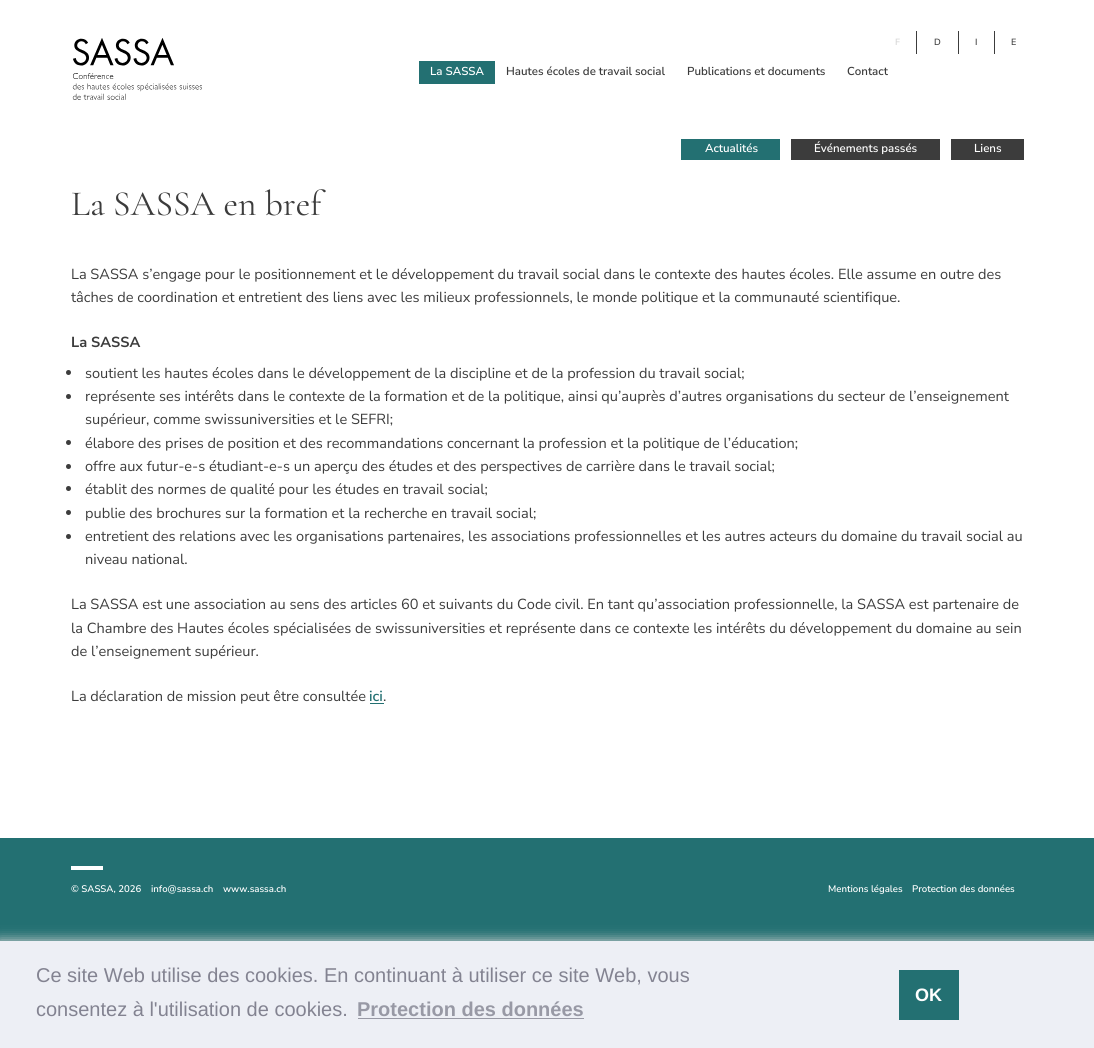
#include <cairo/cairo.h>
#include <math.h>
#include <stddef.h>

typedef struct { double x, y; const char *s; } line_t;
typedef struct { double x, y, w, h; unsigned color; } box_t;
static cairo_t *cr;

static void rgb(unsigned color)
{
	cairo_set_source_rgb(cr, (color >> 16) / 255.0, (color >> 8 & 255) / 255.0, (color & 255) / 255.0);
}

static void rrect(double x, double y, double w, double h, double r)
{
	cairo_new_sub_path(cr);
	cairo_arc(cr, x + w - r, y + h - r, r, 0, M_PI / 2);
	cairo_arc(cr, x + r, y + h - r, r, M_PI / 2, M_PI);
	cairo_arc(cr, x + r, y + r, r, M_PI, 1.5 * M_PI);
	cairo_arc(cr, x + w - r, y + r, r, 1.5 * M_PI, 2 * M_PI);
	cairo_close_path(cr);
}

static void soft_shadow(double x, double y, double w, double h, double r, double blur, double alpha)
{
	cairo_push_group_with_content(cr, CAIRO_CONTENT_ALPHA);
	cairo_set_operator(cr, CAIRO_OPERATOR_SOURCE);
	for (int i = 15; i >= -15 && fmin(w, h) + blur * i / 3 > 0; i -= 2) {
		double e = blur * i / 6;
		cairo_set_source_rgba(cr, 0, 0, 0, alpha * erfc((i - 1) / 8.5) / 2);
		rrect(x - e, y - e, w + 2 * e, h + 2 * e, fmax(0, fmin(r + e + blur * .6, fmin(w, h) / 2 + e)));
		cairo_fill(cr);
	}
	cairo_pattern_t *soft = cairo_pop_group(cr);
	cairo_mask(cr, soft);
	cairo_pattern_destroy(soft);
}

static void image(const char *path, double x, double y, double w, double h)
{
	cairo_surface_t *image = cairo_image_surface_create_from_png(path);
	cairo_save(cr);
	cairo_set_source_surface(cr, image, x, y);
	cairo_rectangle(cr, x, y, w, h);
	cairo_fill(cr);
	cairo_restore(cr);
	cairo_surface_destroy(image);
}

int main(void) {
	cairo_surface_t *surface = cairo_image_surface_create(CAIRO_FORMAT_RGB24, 1094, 1048);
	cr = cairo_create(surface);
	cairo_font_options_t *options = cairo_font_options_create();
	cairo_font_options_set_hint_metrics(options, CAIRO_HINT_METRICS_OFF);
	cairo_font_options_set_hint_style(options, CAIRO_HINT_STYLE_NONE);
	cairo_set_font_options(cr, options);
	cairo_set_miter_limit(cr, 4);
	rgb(0xffffff);
	cairo_paint(cr);
	image("img/1.png", 72, 38, 130, 62);
	{
		static const box_t items[] = {
			{916, 31, 1, 23, 0x3c3c3c},
			{958, 31, 1, 23, 0x3c3c3c},
			{994, 31, 1, 23, 0x3c3c3c},
			{419, 61, 76, 23, 0x237072},
			{681, 139, 99, 21, 0x237072},
			{791, 139, 149, 21, 0x3c3c3c},
			{951, 139, 73, 21, 0x3c3c3c},
		};
		for (size_t i = 0; i < sizeof items / sizeof *items; i++) {
			rgb(items[i].color);
			cairo_rectangle(cr, items[i].x, items[i].y, items[i].w, items[i].h);
			cairo_fill(cr);
		}
	}
	cairo_arc(cr, 68.5, 372.5, 2.5, 0, 2 * M_PI);
	cairo_fill(cr);
	cairo_arc(cr, 68.5, 396.5, 2.5, 0, 2 * M_PI);
	cairo_fill(cr);
	cairo_arc(cr, 68.5, 442.5, 2.5, 0, 2 * M_PI);
	cairo_fill(cr);
	cairo_arc(cr, 68.5, 466.5, 2.5, 0, 2 * M_PI);
	cairo_fill(cr);
	cairo_arc(cr, 68.5, 488.5, 2.5, 0, 2 * M_PI);
	cairo_fill(cr);
	cairo_arc(cr, 68.5, 512.5, 2.5, 0, 2 * M_PI);
	cairo_fill(cr);
	cairo_arc(cr, 68.5, 536.5, 2.5, 0, 2 * M_PI);
	cairo_fill(cr);
	{
		static const box_t items[] = {
			{370, 703, 14, 1, 0x237072},
			{0, 838, 1094, 103, 0x237072},
			{71, 866, 32, 4, 0xffffff},
		};
		for (size_t i = 0; i < sizeof items / sizeof *items; i++) {
			rgb(items[i].color);
			cairo_rectangle(cr, items[i].x, items[i].y, items[i].w, items[i].h);
			cairo_fill(cr);
		}
	}
	rgb(0xd2d2d2);
	soft_shadow(-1, 940, 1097, 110, 0, 6, 1);
	{
		static const box_t items[] = {
			{0, 941, 1094, 107, 0xedeff5},
			{358, 1018, 226, 1, 0x9899a5},
			{899, 970, 60, 50, 0x237072},
		};
		for (size_t i = 0; i < sizeof items / sizeof *items; i++) {
			rgb(items[i].color);
			cairo_rectangle(cr, items[i].x, items[i].y, items[i].w, items[i].h);
			cairo_fill(cr);
		}
	}
	cairo_select_font_face(cr, "Nunito Sans SemiBold", CAIRO_FONT_SLANT_NORMAL, CAIRO_FONT_WEIGHT_NORMAL);
	cairo_set_font_size(cr, 9);
	rgb(0xd6d6d6);
	cairo_move_to(cr, 895, 45);
	cairo_show_text(cr, "F");
	rgb(0x444444);
	{
		static const line_t items[] = {
			{934, 45, "D"},
			{975, 45, "I"},
			{1011, 45, "E"},
		};
		for (size_t i = 0; i < sizeof items / sizeof *items; i++) {
			cairo_move_to(cr, items[i].x, items[i].y);
			cairo_show_text(cr, items[i].s);
		}
	}
	cairo_set_font_size(cr, 11.5);
	rgb(0xffffff);
	cairo_move_to(cr, 430, 75);
	cairo_show_text(cr, "La SASSA");
	rgb(0x3c3c3c);
	{
		static const line_t items[] = {
			{506, 75, "Hautes écoles de travail social"},
			{687, 75, "Publications et documents"},
			{847, 75, "Contact"},
		};
		for (size_t i = 0; i < sizeof items / sizeof *items; i++) {
			cairo_move_to(cr, items[i].x, items[i].y);
			cairo_show_text(cr, items[i].s);
		}
	}
	rgb(0xffffff);
	{
		static const line_t items[] = {
			{705, 152, "Actualités"},
			{814, 152, "Événements passés"},
			{974, 152, "Liens"},
		};
		for (size_t i = 0; i < sizeof items / sizeof *items; i++) {
			cairo_move_to(cr, items[i].x, items[i].y);
			cairo_show_text(cr, items[i].s);
		}
	}
	cairo_select_font_face(cr, "Cormorant Garamond Light", CAIRO_FONT_SLANT_NORMAL, CAIRO_FONT_WEIGHT_NORMAL);
	cairo_set_font_size(cr, 35.5);
	rgb(0x3c3c3c);
	cairo_move_to(cr, 71, 215);
	cairo_show_text(cr, "La SASSA en bref");
	cairo_select_font_face(cr, "Nunito Sans", CAIRO_FONT_SLANT_NORMAL, CAIRO_FONT_WEIGHT_NORMAL);
	cairo_set_font_size(cr, 14.55);
	cairo_move_to(cr, 71, 279);
	cairo_show_text(cr, "La SASSA s’engage pour le positionnement et le développement du travail social dans le contexte des hautes écoles. Elle assume en outre des");
	cairo_move_to(cr, 71, 302);
	cairo_show_text(cr, "tâches de coordination et entretient des liens avec les milieux professionnels, le monde politique et la communauté scientifique.");
	cairo_select_font_face(cr, "Nunito Sans", CAIRO_FONT_SLANT_NORMAL, CAIRO_FONT_WEIGHT_BOLD);
	cairo_move_to(cr, 71, 347);
	cairo_show_text(cr, "La SASSA");
	cairo_select_font_face(cr, "Nunito Sans", CAIRO_FONT_SLANT_NORMAL, CAIRO_FONT_WEIGHT_NORMAL);
	{
		static const line_t items[] = {
			{85, 378, "soutient les hautes écoles dans le développement de la discipline et de la profession du travail social;"},
			{85, 401, "représente ses intérêts dans le contexte de la formation et de la politique, ainsi qu’auprès d’autres organisations du secteur de l’enseignement"},
			{85, 424, "supérieur, comme swissuniversities et le SEFRI;"},
			{85, 448, "élabore des prises de position et des recommandations concernant la profession et la politique de l’éducation;"},
			{85, 471, "offre aux futur-e-s étudiant-e-s un aperçu des études et des perspectives de carrière dans le travail social;"},
			{85, 494, "établit des normes de qualité pour les études en travail social;"},
			{85, 518, "publie des brochures sur la formation et la recherche en travail social;"},
			{85, 541, "entretient des relations avec les organisations partenaires, les associations professionnelles et les autres acteurs du domaine du travail social au"},
			{85, 564, "niveau national."},
			{71, 609, "La SASSA est une association au sens des articles 60 et suivants du Code civil. En tant qu’association professionnelle, la SASSA est partenaire de"},
			{71, 633, "la Chambre des Hautes écoles spécialisées de swissuniversities et représente dans ce contexte les intérêts du développement du domaine au sein"},
			{71, 656, "de l’enseignement supérieur."},
			{71, 701, "La déclaration de mission peut être consultée"},
		};
		for (size_t i = 0; i < sizeof items / sizeof *items; i++) {
			cairo_move_to(cr, items[i].x, items[i].y);
			cairo_show_text(cr, items[i].s);
		}
	}
	cairo_select_font_face(cr, "Nunito Sans SemiBold", CAIRO_FONT_SLANT_NORMAL, CAIRO_FONT_WEIGHT_NORMAL);
	rgb(0x237072);
	cairo_move_to(cr, 369, 701);
	cairo_show_text(cr, "ici");
	cairo_select_font_face(cr, "Nunito Sans", CAIRO_FONT_SLANT_NORMAL, CAIRO_FONT_WEIGHT_NORMAL);
	rgb(0x3c3c3c);
	cairo_move_to(cr, 383, 701);
	cairo_show_text(cr, ".");
	cairo_select_font_face(cr, "Nunito Sans SemiBold", CAIRO_FONT_SLANT_NORMAL, CAIRO_FONT_WEIGHT_NORMAL);
	cairo_set_font_size(cr, 9.6);
	rgb(0xffffff);
	{
		static const line_t items[] = {
			{71, 892, "© SASSA, 2026"},
			{151, 892, "info@sassa.ch"},
			{223, 892, "www.sassa.ch"},
			{828, 892, "Mentions légales"},
			{912, 892, "Protection des données"},
		};
		for (size_t i = 0; i < sizeof items / sizeof *items; i++) {
			cairo_move_to(cr, items[i].x, items[i].y);
			cairo_show_text(cr, items[i].s);
		}
	}
	cairo_select_font_face(cr, "Liberation Sans", CAIRO_FONT_SLANT_NORMAL, CAIRO_FONT_WEIGHT_NORMAL);
	cairo_set_font_size(cr, 20);
	rgb(0x838391);
	cairo_move_to(cr, 36, 982);
	cairo_show_text(cr, "Ce site Web utilise des cookies. En continuant à utiliser ce site Web, vous");
	cairo_move_to(cr, 36, 1016);
	cairo_show_text(cr, "consentez à l'utilisation de cookies.");
	cairo_select_font_face(cr, "Liberation Sans", CAIRO_FONT_SLANT_NORMAL, CAIRO_FONT_WEIGHT_BOLD);
	rgb(0x9899a5);
	cairo_move_to(cr, 357, 1016);
	cairo_show_text(cr, "Protection des données");
	cairo_set_font_size(cr, 18);
	rgb(0xffffff);
	cairo_move_to(cr, 915, 1001);
	cairo_show_text(cr, "OK");
	cairo_surface_write_to_png(surface, "page.png");
	cairo_font_options_destroy(options);
	cairo_destroy(cr);
	cairo_surface_destroy(surface);
	return 0;
}
